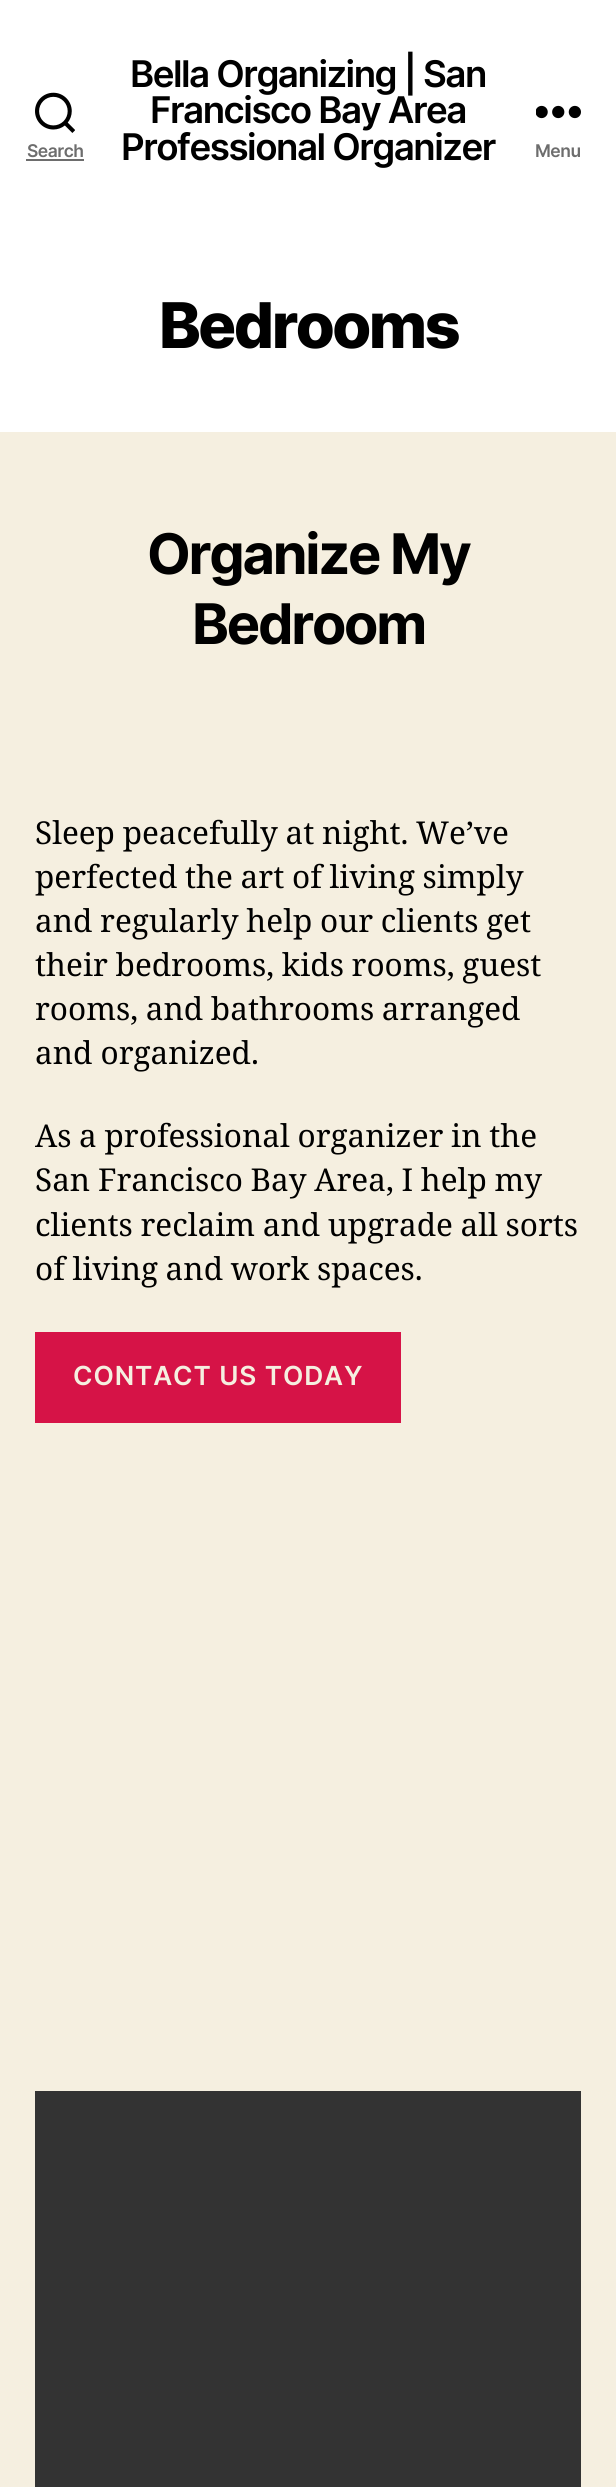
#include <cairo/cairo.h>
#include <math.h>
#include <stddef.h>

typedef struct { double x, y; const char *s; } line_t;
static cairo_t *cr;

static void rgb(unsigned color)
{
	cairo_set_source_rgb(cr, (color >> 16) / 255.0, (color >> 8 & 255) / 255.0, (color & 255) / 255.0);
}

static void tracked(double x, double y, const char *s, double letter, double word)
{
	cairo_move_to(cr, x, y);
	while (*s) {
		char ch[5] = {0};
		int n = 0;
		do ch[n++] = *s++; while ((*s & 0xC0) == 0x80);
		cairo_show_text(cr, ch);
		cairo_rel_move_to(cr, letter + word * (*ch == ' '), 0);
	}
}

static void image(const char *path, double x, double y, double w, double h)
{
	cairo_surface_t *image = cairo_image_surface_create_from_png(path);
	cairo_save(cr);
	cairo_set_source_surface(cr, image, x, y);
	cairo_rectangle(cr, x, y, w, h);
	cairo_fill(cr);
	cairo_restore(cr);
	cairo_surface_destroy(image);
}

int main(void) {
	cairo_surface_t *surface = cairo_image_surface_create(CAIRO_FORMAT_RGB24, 616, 2487);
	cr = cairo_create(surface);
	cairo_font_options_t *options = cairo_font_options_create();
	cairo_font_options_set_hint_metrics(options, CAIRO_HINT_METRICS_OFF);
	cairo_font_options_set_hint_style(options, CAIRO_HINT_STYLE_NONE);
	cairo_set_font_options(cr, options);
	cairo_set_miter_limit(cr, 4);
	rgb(0xf5efe0);
	cairo_paint(cr);
	rgb(0xffffff);
	cairo_rectangle(cr, 0, 0, 616, 432);
	cairo_fill(cr);
	image("img/1.png", 35, 92, 40, 41);
	rgb(0x6d6d6d);
	cairo_rectangle(cr, 26, 159, 58, 2);
	cairo_fill(cr);
	image("img/2.png", 536, 105, 45, 14);
	rgb(0xd61347);
	cairo_rectangle(cr, 35, 1332, 366, 91);
	cairo_fill(cr);
	rgb(0x333333);
	cairo_rectangle(cr, 35, 2091, 546, 396);
	cairo_fill(cr);
	cairo_select_font_face(cr, "Inter SemiBold", CAIRO_FONT_SLANT_NORMAL, CAIRO_FONT_WEIGHT_NORMAL);
	cairo_set_font_size(cr, 17.5);
	rgb(0x6d6d6d);
	tracked(27, 157, "Search", -0.5, 0);
	cairo_set_font_size(cr, 36.75);
	rgb(0x000000);
	{
		static const line_t items[] = {
			{130, 87, "Bella Organizing | San"},
			{150, 123, "Francisco Bay Area"},
			{121, 160, "Professional Organizer"},
		};
		for (size_t i = 0; i < sizeof items / sizeof *items; i++) {
			tracked(items[i].x, items[i].y, items[i].s, -1.5, 0);
		}
	}
	cairo_set_font_size(cr, 17.5);
	rgb(0x6d6d6d);
	tracked(535, 157, "Menu", -0.5, 0);
	cairo_select_font_face(cr, "Inter ExtraBold", CAIRO_FONT_SLANT_NORMAL, CAIRO_FONT_WEIGHT_NORMAL);
	cairo_set_font_size(cr, 63);
	rgb(0x000000);
	tracked(159, 348, "Bedrooms", -2.5, 0);
	cairo_select_font_face(cr, "Inter", CAIRO_FONT_SLANT_NORMAL, CAIRO_FONT_WEIGHT_BOLD);
	cairo_set_font_size(cr, 56);
	tracked(147, 574, "Organize My", -2.25, 0);
	tracked(192, 644, "Bedroom", -2.25, 0);
	cairo_select_font_face(cr, "Noto Serif", CAIRO_FONT_SLANT_NORMAL, CAIRO_FONT_WEIGHT_NORMAL);
	cairo_set_font_size(cr, 31.5);
	{
		static const line_t items[] = {
			{35, 844, "Sleep peacefully at night. We’ve"},
			{35, 888, "perfected the art of living simply"},
			{35, 932, "and regularly help our clients get"},
			{35, 976, "their bedrooms, kids rooms, guest"},
			{35, 1020, "rooms, and bathrooms arranged"},
		};
		for (size_t i = 0; i < sizeof items / sizeof *items; i++) {
			tracked(items[i].x, items[i].y, items[i].s, 0, -0.5);
		}
	}
	cairo_move_to(cr, 35, 1064);
	cairo_show_text(cr, "and organized.");
	{
		static const line_t items[] = {
			{35, 1147, "As a professional organizer in the"},
			{35, 1191, "San Francisco Bay Area, I help my"},
			{35, 1236, "clients reclaim and upgrade all sorts"},
			{35, 1280, "of living and work spaces."},
		};
		for (size_t i = 0; i < sizeof items / sizeof *items; i++) {
			tracked(items[i].x, items[i].y, items[i].s, 0, -0.5);
		}
	}
	cairo_select_font_face(cr, "Inter SemiBold", CAIRO_FONT_SLANT_NORMAL, CAIRO_FONT_WEIGHT_NORMAL);
	cairo_set_font_size(cr, 26.25);
	rgb(0xf5efe0);
	tracked(73, 1385, "CONTACT US TODAY", 0.9, 0);
	cairo_surface_write_to_png(surface, "page.png");
	cairo_font_options_destroy(options);
	cairo_destroy(cr);
	cairo_surface_destroy(surface);
	return 0;
}
